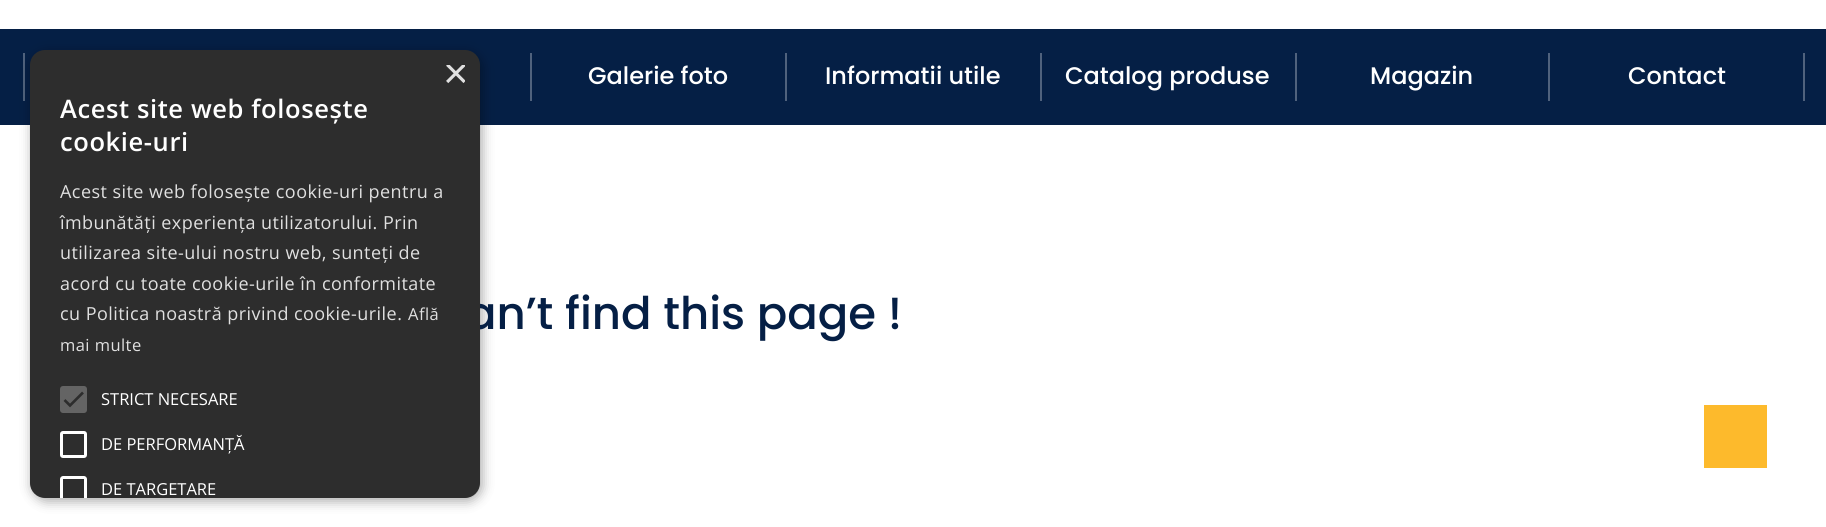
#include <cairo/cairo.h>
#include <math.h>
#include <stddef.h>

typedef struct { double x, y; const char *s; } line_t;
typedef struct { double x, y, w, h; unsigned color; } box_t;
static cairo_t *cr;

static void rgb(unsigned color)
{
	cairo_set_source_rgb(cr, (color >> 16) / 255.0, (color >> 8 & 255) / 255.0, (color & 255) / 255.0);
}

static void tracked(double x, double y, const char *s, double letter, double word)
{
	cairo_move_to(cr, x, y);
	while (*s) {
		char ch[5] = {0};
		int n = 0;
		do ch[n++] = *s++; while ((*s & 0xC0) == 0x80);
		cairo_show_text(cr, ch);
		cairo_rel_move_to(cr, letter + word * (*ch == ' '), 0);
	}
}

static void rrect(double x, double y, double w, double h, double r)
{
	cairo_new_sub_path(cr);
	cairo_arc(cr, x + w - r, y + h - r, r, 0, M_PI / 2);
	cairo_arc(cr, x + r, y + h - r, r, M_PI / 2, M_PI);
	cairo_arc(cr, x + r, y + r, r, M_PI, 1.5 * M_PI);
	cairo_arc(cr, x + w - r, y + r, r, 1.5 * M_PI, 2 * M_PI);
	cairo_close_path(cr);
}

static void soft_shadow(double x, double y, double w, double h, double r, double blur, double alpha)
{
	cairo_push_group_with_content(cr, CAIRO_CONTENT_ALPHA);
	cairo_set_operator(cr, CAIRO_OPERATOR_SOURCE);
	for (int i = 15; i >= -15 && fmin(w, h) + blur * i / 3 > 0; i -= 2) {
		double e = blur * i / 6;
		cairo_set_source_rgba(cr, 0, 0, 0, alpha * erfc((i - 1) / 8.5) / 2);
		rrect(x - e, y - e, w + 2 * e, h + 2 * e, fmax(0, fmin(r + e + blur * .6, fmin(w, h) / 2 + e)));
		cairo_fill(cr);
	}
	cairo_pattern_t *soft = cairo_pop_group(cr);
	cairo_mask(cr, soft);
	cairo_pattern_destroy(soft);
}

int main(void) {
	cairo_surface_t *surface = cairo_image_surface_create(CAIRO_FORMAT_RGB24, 1826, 527);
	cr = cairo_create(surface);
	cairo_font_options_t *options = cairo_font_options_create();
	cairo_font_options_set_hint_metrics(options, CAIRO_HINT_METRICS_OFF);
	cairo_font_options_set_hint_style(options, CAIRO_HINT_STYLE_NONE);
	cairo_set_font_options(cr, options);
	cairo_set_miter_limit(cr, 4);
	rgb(0xffffff);
	cairo_paint(cr);
	rgb(0x051f45);
	cairo_rectangle(cr, 0, 29, 1826, 96);
	cairo_fill(cr);
	rgb(0x50627d);
	cairo_rectangle(cr, 23, 53, 2, 48);
	cairo_fill(cr);
	rgb(0x000000);
	soft_shadow(32, 53, 450, 448, 15, 6, 0.35);
	{
		static const box_t items[] = {
			{530, 53, 2, 48, 0x50627d},
			{785, 53, 2, 48, 0x50627d},
			{1040, 53, 2, 48, 0x50627d},
			{1295, 53, 2, 48, 0x50627d},
			{1548, 53, 2, 48, 0x50627d},
			{1803, 53, 2, 48, 0x50627d},
			{1704, 405, 63, 63, 0xfdba2c},
		};
		for (size_t i = 0; i < sizeof items / sizeof *items; i++) {
			rgb(items[i].color);
			cairo_rectangle(cr, items[i].x, items[i].y, items[i].w, items[i].h);
			cairo_fill(cr);
		}
	}
	cairo_select_font_face(cr, "Poppins Medium", CAIRO_FONT_SLANT_NORMAL, CAIRO_FONT_WEIGHT_NORMAL);
	cairo_set_font_size(cr, 24);
	rgb(0xffffff);
	{
		static const line_t items[] = {
			{588, 84, "Galerie foto"},
			{825, 84, "Informatii utile"},
			{1065, 84, "Catalog produse"},
			{1370, 84, "Magazin"},
			{1628, 84, "Contact"},
		};
		for (size_t i = 0; i < sizeof items / sizeof *items; i++) {
			cairo_move_to(cr, items[i].x, items[i].y);
			cairo_show_text(cr, items[i].s);
		}
	}
	cairo_set_font_size(cr, 45);
	rgb(0x051f45);
	cairo_move_to(cr, 466, 329);
	cairo_show_text(cr, "an’t find this page !");
	rgb(0x2d2d2d);
	rrect(30, 50, 450, 448, 15);
	cairo_fill(cr);
	cairo_save(cr);
	cairo_rectangle(cr, 443, 65, 22, 22);
	cairo_clip(cr);
	cairo_select_font_face(cr, "Liberation Sans", CAIRO_FONT_SLANT_NORMAL, CAIRO_FONT_WEIGHT_NORMAL);
	cairo_set_font_size(cr, 44);
	rgb(0xe0e0e0);
	cairo_move_to(cr, 443, 88);
	cairo_show_text(cr, "×");
	cairo_restore(cr);
	rgb(0xffffff);
	cairo_new_path(cr);
	cairo_move_to(cr, 63, 476);
	cairo_curve_to(cr, 61.5, 476, 60, 477.5, 60, 479);
	cairo_line_to(cr, 60, 498);
	cairo_line_to(cr, 63, 498);
	cairo_line_to(cr, 63, 479);
	cairo_line_to(cr, 84, 479);
	cairo_line_to(cr, 84, 498);
	cairo_line_to(cr, 87, 498);
	cairo_line_to(cr, 87, 479);
	cairo_curve_to(cr, 87, 477.5, 85.5, 476, 84, 476);
	cairo_close_path(cr);
	cairo_fill(cr);
	rrect(61.5, 432.5, 24, 24, 1.5);
	cairo_set_line_width(cr, 3);
	cairo_stroke(cr);
	rgb(0x646464);
	rrect(60, 386, 27, 27, 3);
	cairo_fill(cr);
	cairo_new_path(cr);
	cairo_move_to(cr, 64.5, 400);
	cairo_line_to(cr, 70, 405.5);
	cairo_line_to(cr, 83, 392.5);
	rgb(0x2d2d2d);
	cairo_set_line_width(cr, 2.7);
	cairo_stroke(cr);
	cairo_select_font_face(cr, "Open Sans", CAIRO_FONT_SLANT_NORMAL, CAIRO_FONT_WEIGHT_NORMAL);
	cairo_set_font_size(cr, 16.5);
	rgb(0xe0e0e0);
	tracked(60, 351, "mai multe", 0.45, 0);
	tracked(408, 320, "Află", 0.45, 0);
	cairo_set_font_size(cr, 18);
	{
		static const line_t items[] = {
			{60, 320, "cu Politica noastră privind cookie-urile."},
			{60, 290, "acord cu toate cookie-urile în conformitate"},
			{60, 259, "utilizarea site-ului nostru web, sunteți de"},
			{60, 229, "îmbunătăți experiența utilizatorului. Prin"},
			{60, 198, "Acest site web folosește cookie-uri pentru a"},
		};
		for (size_t i = 0; i < sizeof items / sizeof *items; i++) {
			tracked(items[i].x, items[i].y, items[i].s, 0.45, 0);
		}
	}
	cairo_set_font_size(cr, 16.5);
	rgb(0xffffff);
	{
		static const line_t items[] = {
			{101, 495, "DE TARGETARE"},
			{101, 450, "DE PERFORMANȚĂ"},
			{101, 405, "STRICT NECESARE"},
		};
		for (size_t i = 0; i < sizeof items / sizeof *items; i++) {
			cairo_move_to(cr, items[i].x, items[i].y);
			cairo_show_text(cr, items[i].s);
		}
	}
	cairo_select_font_face(cr, "Open Sans SemiBold", CAIRO_FONT_SLANT_NORMAL, CAIRO_FONT_WEIGHT_NORMAL);
	cairo_set_font_size(cr, 25.5);
	tracked(60, 151, "cookie-uri", 0.6, 0);
	tracked(60, 118, "Acest site web folosește", 0.6, 0);
	cairo_surface_write_to_png(surface, "page.png");
	cairo_font_options_destroy(options);
	cairo_destroy(cr);
	cairo_surface_destroy(surface);
	return 0;
}
